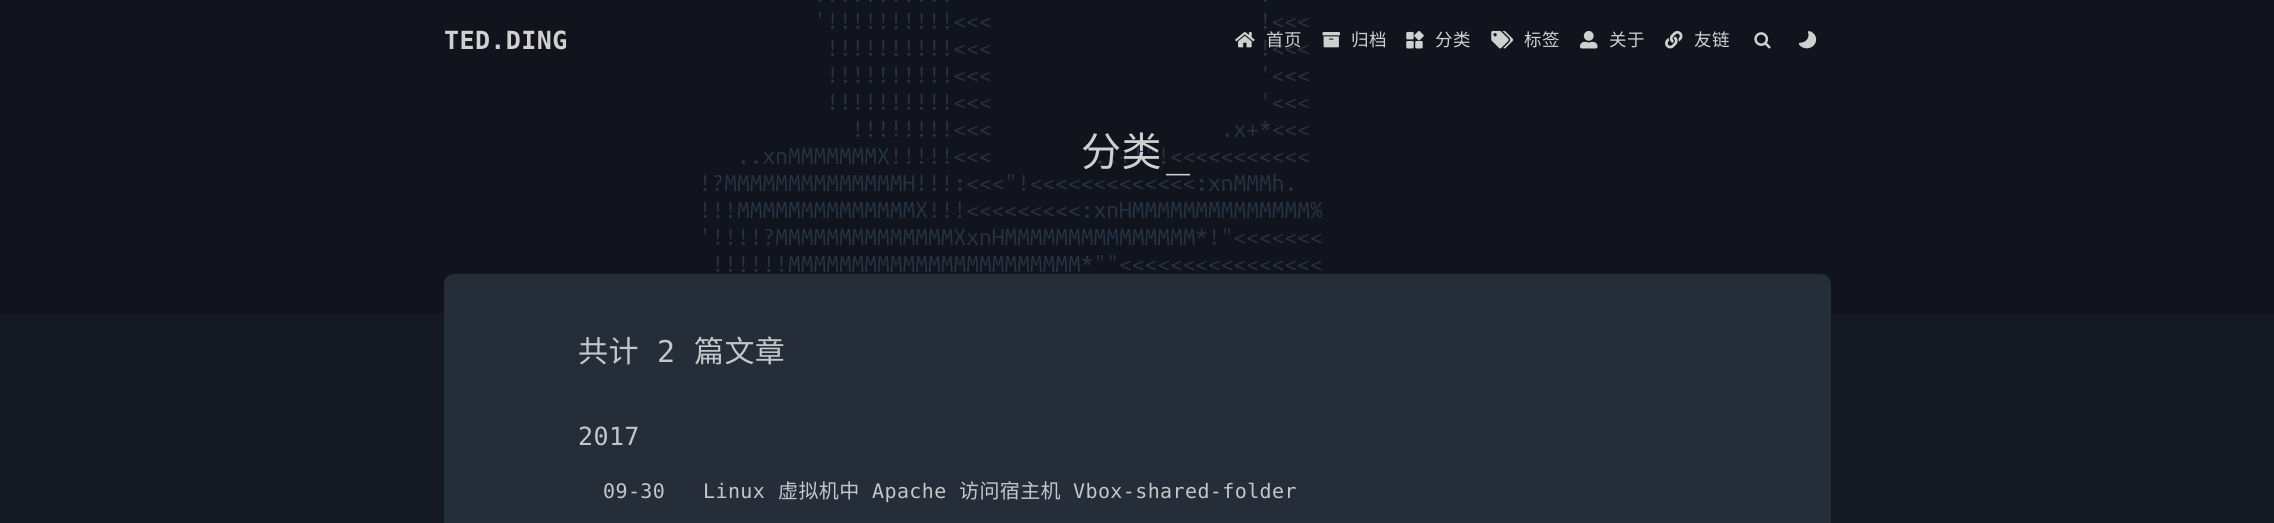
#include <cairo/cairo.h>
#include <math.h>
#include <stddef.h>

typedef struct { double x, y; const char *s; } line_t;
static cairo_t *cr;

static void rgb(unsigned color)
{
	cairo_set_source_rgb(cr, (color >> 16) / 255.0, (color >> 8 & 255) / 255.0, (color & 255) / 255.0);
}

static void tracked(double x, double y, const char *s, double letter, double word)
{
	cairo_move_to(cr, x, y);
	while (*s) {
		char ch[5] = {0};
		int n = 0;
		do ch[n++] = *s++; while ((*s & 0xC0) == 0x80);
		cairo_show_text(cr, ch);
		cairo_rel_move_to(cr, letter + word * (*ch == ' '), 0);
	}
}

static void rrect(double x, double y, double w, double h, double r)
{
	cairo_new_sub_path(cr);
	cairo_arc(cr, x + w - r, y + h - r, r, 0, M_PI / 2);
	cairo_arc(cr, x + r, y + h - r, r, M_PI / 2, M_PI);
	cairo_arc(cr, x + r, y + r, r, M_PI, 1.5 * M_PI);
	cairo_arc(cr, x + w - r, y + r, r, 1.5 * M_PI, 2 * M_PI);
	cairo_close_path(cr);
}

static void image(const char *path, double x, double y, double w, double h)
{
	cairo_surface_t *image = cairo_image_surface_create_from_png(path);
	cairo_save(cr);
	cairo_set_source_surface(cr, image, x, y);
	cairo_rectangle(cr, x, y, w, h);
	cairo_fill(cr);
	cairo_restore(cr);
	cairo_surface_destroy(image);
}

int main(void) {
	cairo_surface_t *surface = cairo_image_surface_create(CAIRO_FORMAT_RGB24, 2274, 523);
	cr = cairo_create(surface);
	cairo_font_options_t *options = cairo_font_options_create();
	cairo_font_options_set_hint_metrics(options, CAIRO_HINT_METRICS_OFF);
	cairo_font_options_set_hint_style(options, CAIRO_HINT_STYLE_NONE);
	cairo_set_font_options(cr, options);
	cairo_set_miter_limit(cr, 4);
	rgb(0x151923);
	cairo_paint(cr);
	rgb(0x11141c);
	cairo_rectangle(cr, 0, 0, 2274, 314);
	cairo_fill(cr);
	image("img/9.png", 703, 0, 620, 272);
	image("img/1.png", 1235, 32, 20, 16);
	image("img/2.png", 1322, 32, 18, 16);
	image("img/3.png", 1406, 31, 18, 18);
	image("img/4.png", 1491, 30, 23, 19);
	image("img/5.png", 1580, 30, 18, 19);
	image("img/6.png", 1665, 30, 18, 19);
	image("img/7.png", 1754, 32, 17, 17);
	image("img/8.png", 1798, 31, 19, 18);
	rgb(0x252d38);
	rrect(444, 274, 1387, 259, 10);
	cairo_fill(cr);
	cairo_select_font_face(cr, "DejaVu Sans Mono", CAIRO_FONT_SLANT_NORMAL, CAIRO_FONT_WEIGHT_BOLD);
	cairo_set_font_size(cr, 25);
	rgb(0xd0d0d0);
	tracked(444, 49, "TED.DING", 0.4, 0);
	cairo_select_font_face(cr, "Noto Sans CJK SC", CAIRO_FONT_SLANT_NORMAL, CAIRO_FONT_WEIGHT_NORMAL);
	cairo_set_font_size(cr, 17.5);
	{
		static const line_t items[] = {
			{1266, 46, "首页"},
			{1351, 46, "归档"},
			{1435, 46, "分类"},
			{1524, 46, "标签"},
			{1609, 46, "关于"},
			{1694, 46, "友链"},
		};
		for (size_t i = 0; i < sizeof items / sizeof *items; i++) {
			tracked(items[i].x, items[i].y, items[i].s, 0.4, 0);
		}
	}
	cairo_set_font_size(cr, 40);
	tracked(1081, 166, "分类", 0.4, 0);
	cairo_select_font_face(cr, "DejaVu Sans Mono", CAIRO_FONT_SLANT_NORMAL, CAIRO_FONT_WEIGHT_NORMAL);
	tracked(1166, 166, "_", 0.4, 0);
	cairo_select_font_face(cr, "Noto Sans CJK SC", CAIRO_FONT_SLANT_NORMAL, CAIRO_FONT_WEIGHT_NORMAL);
	cairo_set_font_size(cr, 30);
	rgb(0xc4c6c9);
	tracked(578, 362, "共计", 0.4, 0);
	cairo_select_font_face(cr, "DejaVu Sans Mono", CAIRO_FONT_SLANT_NORMAL, CAIRO_FONT_WEIGHT_NORMAL);
	tracked(657, 362, "2", 0.4, 0);
	cairo_select_font_face(cr, "Noto Sans CJK SC", CAIRO_FONT_SLANT_NORMAL, CAIRO_FONT_WEIGHT_NORMAL);
	tracked(694, 362, "篇文章", 0.4, 0);
	cairo_select_font_face(cr, "DejaVu Sans Mono", CAIRO_FONT_SLANT_NORMAL, CAIRO_FONT_WEIGHT_NORMAL);
	cairo_set_font_size(cr, 25);
	tracked(578, 445, "2017", 0.4, 0);
	cairo_set_font_size(cr, 20);
	tracked(603, 498, "09-30", 0.4, 0);
	tracked(703, 498, "Linux", 0.4, 0);
	cairo_select_font_face(cr, "Noto Sans CJK SC", CAIRO_FONT_SLANT_NORMAL, CAIRO_FONT_WEIGHT_NORMAL);
	tracked(778, 498, "虚拟机中", 0.4, 0);
	cairo_select_font_face(cr, "DejaVu Sans Mono", CAIRO_FONT_SLANT_NORMAL, CAIRO_FONT_WEIGHT_NORMAL);
	tracked(872, 498, "Apache", 0.4, 0);
	cairo_select_font_face(cr, "Noto Sans CJK SC", CAIRO_FONT_SLANT_NORMAL, CAIRO_FONT_WEIGHT_NORMAL);
	tracked(959, 498, "访问宿主机", 0.4, 0);
	cairo_select_font_face(cr, "DejaVu Sans Mono", CAIRO_FONT_SLANT_NORMAL, CAIRO_FONT_WEIGHT_NORMAL);
	tracked(1073, 498, "Vbox-shared-folder", 0.4, 0);
	cairo_surface_write_to_png(surface, "page.png");
	cairo_font_options_destroy(options);
	cairo_destroy(cr);
	cairo_surface_destroy(surface);
	return 0;
}
